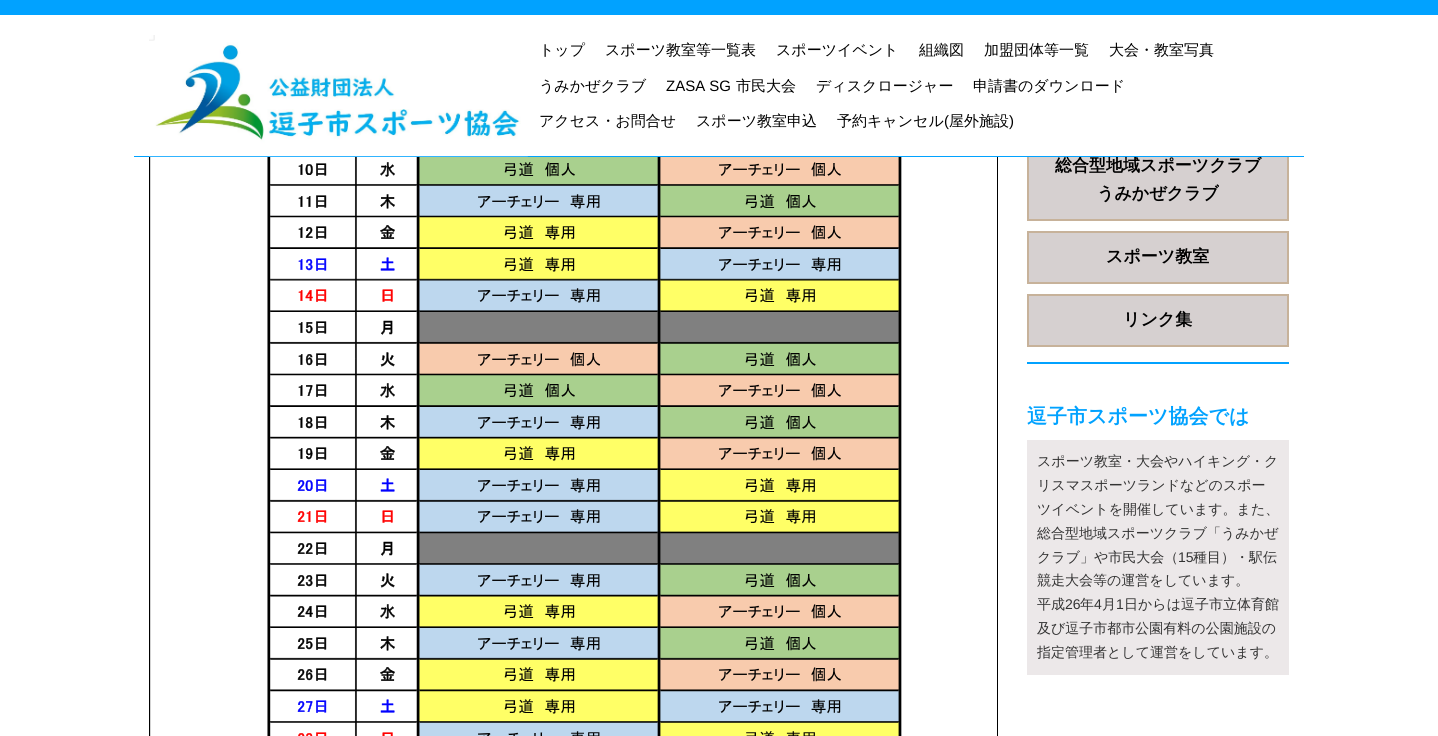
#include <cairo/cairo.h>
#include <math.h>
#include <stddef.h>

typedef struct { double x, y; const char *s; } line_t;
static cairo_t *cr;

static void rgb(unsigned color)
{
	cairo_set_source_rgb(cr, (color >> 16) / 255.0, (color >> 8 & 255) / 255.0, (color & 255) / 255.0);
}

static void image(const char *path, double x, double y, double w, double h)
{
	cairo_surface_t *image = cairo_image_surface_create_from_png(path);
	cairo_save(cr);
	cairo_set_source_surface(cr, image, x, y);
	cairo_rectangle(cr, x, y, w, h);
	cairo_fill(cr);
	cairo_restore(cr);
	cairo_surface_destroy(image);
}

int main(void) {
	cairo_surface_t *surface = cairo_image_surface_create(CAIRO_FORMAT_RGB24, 1438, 736);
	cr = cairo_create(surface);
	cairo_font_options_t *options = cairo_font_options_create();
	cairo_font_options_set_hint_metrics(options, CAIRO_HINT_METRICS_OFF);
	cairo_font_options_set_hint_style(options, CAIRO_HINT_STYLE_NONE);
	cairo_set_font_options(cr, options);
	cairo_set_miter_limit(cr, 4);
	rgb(0xffffff);
	cairo_paint(cr);
	rgb(0xd3d3d3);
	cairo_rectangle(cr, 150, 157, 1, 579);
	cairo_fill(cr);
	cairo_rectangle(cr, 149.5, -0.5, 848, 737);
	rgb(0x000000);
	cairo_set_line_width(cr, 1);
	cairo_stroke(cr);
	rgb(0x01a2ff);
	cairo_rectangle(cr, 0, 0, 1438, 15);
	cairo_fill(cr);
	image("img/2.png", 267, 157, 635, 579);
	rgb(0xd6d0d0);
	cairo_rectangle(cr, 1029, 157, 258, 62);
	cairo_fill(cr);
	cairo_rectangle(cr, 1028, 141, 260, 79);
	rgb(0xc7b29a);
	cairo_set_line_width(cr, 2);
	cairo_stroke(cr);
	rgb(0xd6d0d0);
	cairo_rectangle(cr, 1028, 232, 260, 51);
	cairo_fill_preserve(cr);
	rgb(0xc7b29a);
	cairo_stroke(cr);
	rgb(0xd6d0d0);
	cairo_rectangle(cr, 1028, 295, 260, 51);
	cairo_fill_preserve(cr);
	rgb(0xc7b29a);
	cairo_stroke(cr);
	rgb(0x01a2ff);
	cairo_rectangle(cr, 1027, 362, 262, 2);
	cairo_fill(cr);
	rgb(0xece8e9);
	cairo_rectangle(cr, 1027, 440, 262, 235);
	cairo_fill(cr);
	cairo_select_font_face(cr, "WenQuanYi Zen Hei", CAIRO_FONT_SLANT_NORMAL, CAIRO_FONT_WEIGHT_BOLD);
	cairo_set_font_size(cr, 17);
	rgb(0x000000);
	cairo_move_to(cr, 1055, 171);
	cairo_show_text(cr, "総合型地域スポーツクラブ");
	rgb(0xffffff);
	cairo_rectangle(cr, 149, 15, 1140, 142);
	cairo_fill(cr);
	cairo_select_font_face(cr, "Liberation Sans", CAIRO_FONT_SLANT_NORMAL, CAIRO_FONT_WEIGHT_NORMAL);
	cairo_set_font_size(cr, 15);
	rgb(0x000000);
	cairo_move_to(cr, 1009, 126);
	cairo_show_text(cr, ")");
	cairo_select_font_face(cr, "WenQuanYi Zen Hei Medium", CAIRO_FONT_SLANT_NORMAL, CAIRO_FONT_WEIGHT_NORMAL);
	cairo_move_to(cr, 949, 126);
	cairo_show_text(cr, "屋外施設");
	cairo_select_font_face(cr, "Liberation Sans", CAIRO_FONT_SLANT_NORMAL, CAIRO_FONT_WEIGHT_NORMAL);
	cairo_move_to(cr, 944, 126);
	cairo_show_text(cr, "(");
	cairo_select_font_face(cr, "WenQuanYi Zen Hei Medium", CAIRO_FONT_SLANT_NORMAL, CAIRO_FONT_WEIGHT_NORMAL);
	{
		static const line_t items[] = {
			{837, 126, "予約キャンセル"},
			{696, 126, "スポーツ教室申込"},
			{539, 126, "アクセス・お問合せ"},
			{973, 91, "申請書のダウンロード"},
			{816, 91, "ディスクロージャー"},
			{736, 91, "市民大会"},
		};
		for (size_t i = 0; i < sizeof items / sizeof *items; i++) {
			cairo_move_to(cr, items[i].x, items[i].y);
			cairo_show_text(cr, items[i].s);
		}
	}
	cairo_select_font_face(cr, "Liberation Sans", CAIRO_FONT_SLANT_NORMAL, CAIRO_FONT_WEIGHT_NORMAL);
	cairo_move_to(cr, 666, 91);
	cairo_show_text(cr, "ZASA SG");
	cairo_select_font_face(cr, "WenQuanYi Zen Hei Medium", CAIRO_FONT_SLANT_NORMAL, CAIRO_FONT_WEIGHT_NORMAL);
	{
		static const line_t items[] = {
			{539, 91, "うみかぜクラブ"},
			{1109, 55, "大会・教室写真"},
			{984, 55, "加盟団体等一覧"},
			{919, 55, "組織図"},
			{776, 55, "スポーツイベント"},
			{605, 55, "スポーツ教室等一覧表"},
			{539, 55, "トップ"},
		};
		for (size_t i = 0; i < sizeof items / sizeof *items; i++) {
			cairo_move_to(cr, items[i].x, items[i].y);
			cairo_show_text(cr, items[i].s);
		}
	}
	rgb(0x01a2ff);
	cairo_rectangle(cr, 134, 156, 1170, 1);
	cairo_fill(cr);
	image("img/1.png", 149, 35, 379, 122);
	cairo_select_font_face(cr, "WenQuanYi Zen Hei", CAIRO_FONT_SLANT_NORMAL, CAIRO_FONT_WEIGHT_BOLD);
	cairo_set_font_size(cr, 17);
	rgb(0x000000);
	{
		static const line_t items[] = {
			{1097, 199, "うみかぜクラブ"},
			{1106, 262, "スポーツ教室"},
			{1123, 325, "リンク集"},
		};
		for (size_t i = 0; i < sizeof items / sizeof *items; i++) {
			cairo_move_to(cr, items[i].x, items[i].y);
			cairo_show_text(cr, items[i].s);
		}
	}
	cairo_set_font_size(cr, 20);
	rgb(0x01a2ff);
	cairo_move_to(cr, 1027, 423);
	cairo_show_text(cr, "逗子市スポーツ協会では");
	cairo_select_font_face(cr, "WenQuanYi Zen Hei Medium", CAIRO_FONT_SLANT_NORMAL, CAIRO_FONT_WEIGHT_NORMAL);
	cairo_set_font_size(cr, 14);
	rgb(0x333333);
	{
		static const line_t items[] = {
			{1037, 466, "スポーツ教室・大会やハイキング・ク"},
			{1037, 490, "リスマスポーツランドなどのスポー"},
			{1037, 514, "ツイベントを開催しています。また、"},
			{1037, 538, "総合型地域スポーツクラブ「うみかぜ"},
			{1037, 562, "クラブ」や市民大会（"},
		};
		for (size_t i = 0; i < sizeof items / sizeof *items; i++) {
			cairo_move_to(cr, items[i].x, items[i].y);
			cairo_show_text(cr, items[i].s);
		}
	}
	cairo_select_font_face(cr, "Liberation Sans", CAIRO_FONT_SLANT_NORMAL, CAIRO_FONT_WEIGHT_NORMAL);
	cairo_move_to(cr, 1178, 562);
	cairo_show_text(cr, "15");
	cairo_select_font_face(cr, "WenQuanYi Zen Hei Medium", CAIRO_FONT_SLANT_NORMAL, CAIRO_FONT_WEIGHT_NORMAL);
	{
		static const line_t items[] = {
			{1193, 562, "種目）・駅伝"},
			{1037, 585, "競走大会等の運営をしています。"},
			{1037, 609, "平成"},
		};
		for (size_t i = 0; i < sizeof items / sizeof *items; i++) {
			cairo_move_to(cr, items[i].x, items[i].y);
			cairo_show_text(cr, items[i].s);
		}
	}
	cairo_select_font_face(cr, "Liberation Sans", CAIRO_FONT_SLANT_NORMAL, CAIRO_FONT_WEIGHT_NORMAL);
	cairo_move_to(cr, 1065, 609);
	cairo_show_text(cr, "26");
	cairo_select_font_face(cr, "WenQuanYi Zen Hei Medium", CAIRO_FONT_SLANT_NORMAL, CAIRO_FONT_WEIGHT_NORMAL);
	cairo_move_to(cr, 1080, 609);
	cairo_show_text(cr, "年");
	cairo_select_font_face(cr, "Liberation Sans", CAIRO_FONT_SLANT_NORMAL, CAIRO_FONT_WEIGHT_NORMAL);
	cairo_move_to(cr, 1094, 609);
	cairo_show_text(cr, "4");
	cairo_select_font_face(cr, "WenQuanYi Zen Hei Medium", CAIRO_FONT_SLANT_NORMAL, CAIRO_FONT_WEIGHT_NORMAL);
	cairo_move_to(cr, 1102, 609);
	cairo_show_text(cr, "月");
	cairo_select_font_face(cr, "Liberation Sans", CAIRO_FONT_SLANT_NORMAL, CAIRO_FONT_WEIGHT_NORMAL);
	cairo_move_to(cr, 1116, 609);
	cairo_show_text(cr, "1");
	cairo_select_font_face(cr, "WenQuanYi Zen Hei Medium", CAIRO_FONT_SLANT_NORMAL, CAIRO_FONT_WEIGHT_NORMAL);
	{
		static const line_t items[] = {
			{1124, 609, "日からは逗子市立体育館"},
			{1037, 633, "及び逗子市都市公園有料の公園施設の"},
			{1037, 657, "指定管理者として運営をしています。"},
		};
		for (size_t i = 0; i < sizeof items / sizeof *items; i++) {
			cairo_move_to(cr, items[i].x, items[i].y);
			cairo_show_text(cr, items[i].s);
		}
	}
	cairo_surface_write_to_png(surface, "page.png");
	cairo_font_options_destroy(options);
	cairo_destroy(cr);
	cairo_surface_destroy(surface);
	return 0;
}
